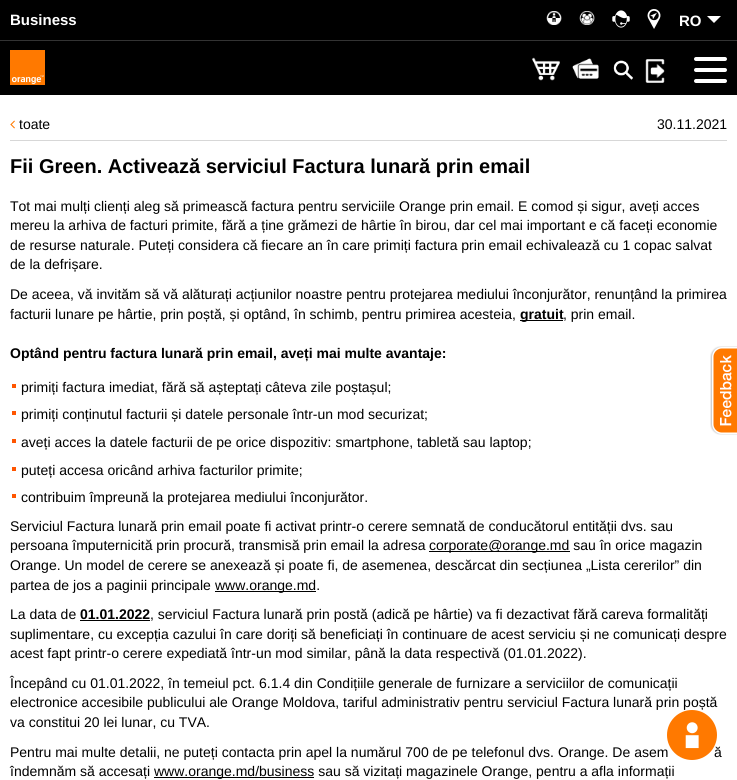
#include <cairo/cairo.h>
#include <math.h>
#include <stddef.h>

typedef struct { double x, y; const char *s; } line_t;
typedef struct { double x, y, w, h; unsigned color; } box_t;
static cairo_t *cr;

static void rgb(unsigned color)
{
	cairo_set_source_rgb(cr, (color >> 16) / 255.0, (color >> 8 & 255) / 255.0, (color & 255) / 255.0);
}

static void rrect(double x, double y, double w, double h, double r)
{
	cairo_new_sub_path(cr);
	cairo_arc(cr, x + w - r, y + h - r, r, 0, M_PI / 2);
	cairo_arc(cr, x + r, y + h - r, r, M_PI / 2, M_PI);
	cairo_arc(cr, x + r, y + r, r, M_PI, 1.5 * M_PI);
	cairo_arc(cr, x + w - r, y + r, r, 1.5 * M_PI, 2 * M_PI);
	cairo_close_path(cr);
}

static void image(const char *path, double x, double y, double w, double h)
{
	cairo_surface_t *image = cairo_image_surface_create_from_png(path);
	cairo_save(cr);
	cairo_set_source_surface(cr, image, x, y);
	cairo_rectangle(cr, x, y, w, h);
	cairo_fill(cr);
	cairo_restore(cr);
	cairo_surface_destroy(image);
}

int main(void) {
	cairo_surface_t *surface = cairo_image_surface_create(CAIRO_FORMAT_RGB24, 737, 780);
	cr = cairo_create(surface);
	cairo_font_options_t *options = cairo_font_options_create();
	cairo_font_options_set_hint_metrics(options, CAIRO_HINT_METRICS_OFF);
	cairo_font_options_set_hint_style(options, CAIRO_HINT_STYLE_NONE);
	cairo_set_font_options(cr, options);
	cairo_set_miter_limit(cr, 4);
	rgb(0xffffff);
	cairo_paint(cr);
	rgb(0x000000);
	cairo_rectangle(cr, 0, 0, 737, 40);
	cairo_fill(cr);
	image("img/1.png", 546, 11, 16, 14);
	image("img/2.png", 579, 11, 16, 14);
	image("img/3.png", 612, 10, 18, 18);
	image("img/4.png", 647, 9, 14, 20);
	image("img/5.png", 707, 16, 14, 7);
	cairo_rectangle(cr, 0, 41, 737, 54);
	cairo_fill(cr);
	rgb(0x333333);
	cairo_rectangle(cr, 0, 40, 737, 1);
	cairo_fill(cr);
	image("img/6.png", 10, 50, 35, 35);
	image("img/7.png", 532, 57, 28, 24);
	image("img/8.png", 572, 58, 27, 21);
	image("img/9.png", 613, 60, 20, 20);
	image("img/10.png", 645, 59, 20, 24);
	rgb(0xffffff);
	rrect(694, 57, 33, 4, 2);
	cairo_fill(cr);
	rrect(694, 68, 33, 4, 2);
	cairo_fill(cr);
	rrect(694, 79, 33, 4, 2);
	cairo_fill(cr);
	image("img/11.png", 10, 120, 5, 9);
	{
		static const box_t items[] = {
			{10, 140, 717, 1, 0xd7d7d7},
			{520, 320, 43, 1, 0x000000},
			{12, 384, 4, 4, 0xff5500},
			{12, 411, 4, 4, 0xff5500},
			{12, 439, 4, 4, 0xff5500},
			{12, 467, 4, 4, 0xff5500},
			{12, 494, 4, 4, 0xff5500},
			{429, 551, 141, 1, 0x000000},
			{215, 591, 101, 1, 0x000000},
			{80, 620, 70, 1, 0x000000},
			{154, 777, 160, 1, 0x000000},
		};
		for (size_t i = 0; i < sizeof items / sizeof *items; i++) {
			rgb(items[i].color);
			cairo_rectangle(cr, items[i].x, items[i].y, items[i].w, items[i].h);
			cairo_fill(cr);
		}
	}
	image("img/12.png", 710, 346, 27, 89);
	cairo_select_font_face(cr, "Liberation Sans", CAIRO_FONT_SLANT_NORMAL, CAIRO_FONT_WEIGHT_BOLD);
	cairo_set_font_size(cr, 15);
	rgb(0xffffff);
	cairo_move_to(cr, 10, 25);
	cairo_show_text(cr, "Business");
	cairo_move_to(cr, 679, 26);
	cairo_show_text(cr, "RO");
	cairo_select_font_face(cr, "Liberation Sans", CAIRO_FONT_SLANT_NORMAL, CAIRO_FONT_WEIGHT_NORMAL);
	cairo_set_font_size(cr, 14);
	rgb(0x000000);
	cairo_move_to(cr, 19, 129);
	cairo_show_text(cr, "toate");
	cairo_move_to(cr, 657, 129);
	cairo_show_text(cr, "30.11.2021");
	cairo_select_font_face(cr, "Liberation Sans", CAIRO_FONT_SLANT_NORMAL, CAIRO_FONT_WEIGHT_BOLD);
	cairo_set_font_size(cr, 20);
	cairo_move_to(cr, 10, 173);
	cairo_show_text(cr, "Fii Green. Activează serviciul Factura lunară prin email");
	cairo_select_font_face(cr, "Liberation Sans", CAIRO_FONT_SLANT_NORMAL, CAIRO_FONT_WEIGHT_NORMAL);
	cairo_set_font_size(cr, 14);
	{
		static const line_t items[] = {
			{10, 211, "Tot mai mulți clienți aleg să primească factura pentru serviciile Orange prin email. E comod și sigur, aveți acces"},
			{10, 230, "mereu la arhiva de facturi primite, fără a ține grămezi de hârtie în birou, dar cel mai important e că faceți economie"},
			{10, 250, "de resurse naturale. Puteți considera că fiecare an în care primiți factura prin email echivalează cu 1 copac salvat"},
			{10, 269, "de la defrișare."},
			{10, 299, "De aceea, vă invităm să vă alăturați acțiunilor noastre pentru protejarea mediului înconjurător, renunțând la primirea"},
			{10, 319, "facturii lunare pe hârtie, prin poștă, și optând, în schimb, pentru primirea acesteia,"},
		};
		for (size_t i = 0; i < sizeof items / sizeof *items; i++) {
			cairo_move_to(cr, items[i].x, items[i].y);
			cairo_show_text(cr, items[i].s);
		}
	}
	cairo_select_font_face(cr, "Liberation Sans", CAIRO_FONT_SLANT_NORMAL, CAIRO_FONT_WEIGHT_BOLD);
	cairo_move_to(cr, 520, 319);
	cairo_show_text(cr, "gratuit");
	cairo_select_font_face(cr, "Liberation Sans", CAIRO_FONT_SLANT_NORMAL, CAIRO_FONT_WEIGHT_NORMAL);
	cairo_move_to(cr, 563, 319);
	cairo_show_text(cr, ", prin email.");
	cairo_select_font_face(cr, "Liberation Sans", CAIRO_FONT_SLANT_NORMAL, CAIRO_FONT_WEIGHT_BOLD);
	cairo_move_to(cr, 10, 358);
	cairo_show_text(cr, "Optând pentru factura lunară prin email, aveți mai multe avantaje:");
	cairo_select_font_face(cr, "Liberation Sans", CAIRO_FONT_SLANT_NORMAL, CAIRO_FONT_WEIGHT_NORMAL);
	{
		static const line_t items[] = {
			{21, 392, "primiți factura imediat, fără să așteptați câteva zile poștașul;"},
			{21, 419, "primiți conținutul facturii și datele personale într-un mod securizat;"},
			{21, 447, "aveți acces la datele facturii de pe orice dispozitiv: smartphone, tabletă sau laptop;"},
			{21, 475, "puteți accesa oricând arhiva facturilor primite;"},
			{21, 502, "contribuim împreună la protejarea mediului înconjurător."},
			{10, 531, "Serviciul Factura lunară prin email poate fi activat printr-o cerere semnată de conducătorul entității dvs. sau"},
			{10, 550, "persoana împuternicită prin procură, transmisă prin email la adresa"},
			{429, 550, "corporate@orange.md sau în orice magazin"},
			{10, 570, "Orange. Un model de cerere se anexează și poate fi, de asemenea, descărcat din secțiunea „Lista cererilor” din"},
			{10, 590, "partea de jos a paginii principale"},
			{215, 590, "www.orange.md."},
			{10, 619, "La data de"},
		};
		for (size_t i = 0; i < sizeof items / sizeof *items; i++) {
			cairo_move_to(cr, items[i].x, items[i].y);
			cairo_show_text(cr, items[i].s);
		}
	}
	cairo_select_font_face(cr, "Liberation Sans", CAIRO_FONT_SLANT_NORMAL, CAIRO_FONT_WEIGHT_BOLD);
	cairo_move_to(cr, 80, 619);
	cairo_show_text(cr, "01.01.2022");
	cairo_select_font_face(cr, "Liberation Sans", CAIRO_FONT_SLANT_NORMAL, CAIRO_FONT_WEIGHT_NORMAL);
	{
		static const line_t items[] = {
			{150, 619, ", serviciul Factura lunară prin postă (adică pe hârtie) va fi dezactivat fără careva formalități"},
			{10, 639, "suplimentare, cu excepția cazului în care doriți să beneficiați în continuare de acest serviciu și ne comunicați despre"},
			{10, 658, "acest fapt printr-o cerere expediată într-un mod similar, până la data respectivă (01.01.2022)."},
			{10, 688, "Începând cu 01.01.2022, în temeiul pct. 6.1.4 din Condițiile generale de furnizare a serviciilor de comunicații"},
			{10, 707, "electronice accesibile publicului ale Orange Moldova, tariful administrativ pentru serviciul Factura lunară prin poștă"},
			{10, 727, "va constitui 20 lei lunar, cu TVA."},
			{10, 757, "Pentru mai multe detalii, ne puteți contacta prin apel la numărul 700 de pe telefonul dvs. Orange. De asem"},
			{714, 757, "ă"},
			{10, 776, "îndemnăm să accesați"},
			{154, 776, "www.orange.md/business sau să vizitați magazinele Orange, pentru a afla informații"},
		};
		for (size_t i = 0; i < sizeof items / sizeof *items; i++) {
			cairo_move_to(cr, items[i].x, items[i].y);
			cairo_show_text(cr, items[i].s);
		}
	}
	rgb(0xff7900);
	cairo_new_path(cr);
	cairo_arc(cr, 692, 735, 25, 0, 2 * M_PI);
	cairo_fill(cr);
	image("img/13.png", 685, 722, 14, 27);
	cairo_surface_write_to_png(surface, "page.png");
	cairo_font_options_destroy(options);
	cairo_destroy(cr);
	cairo_surface_destroy(surface);
	return 0;
}
